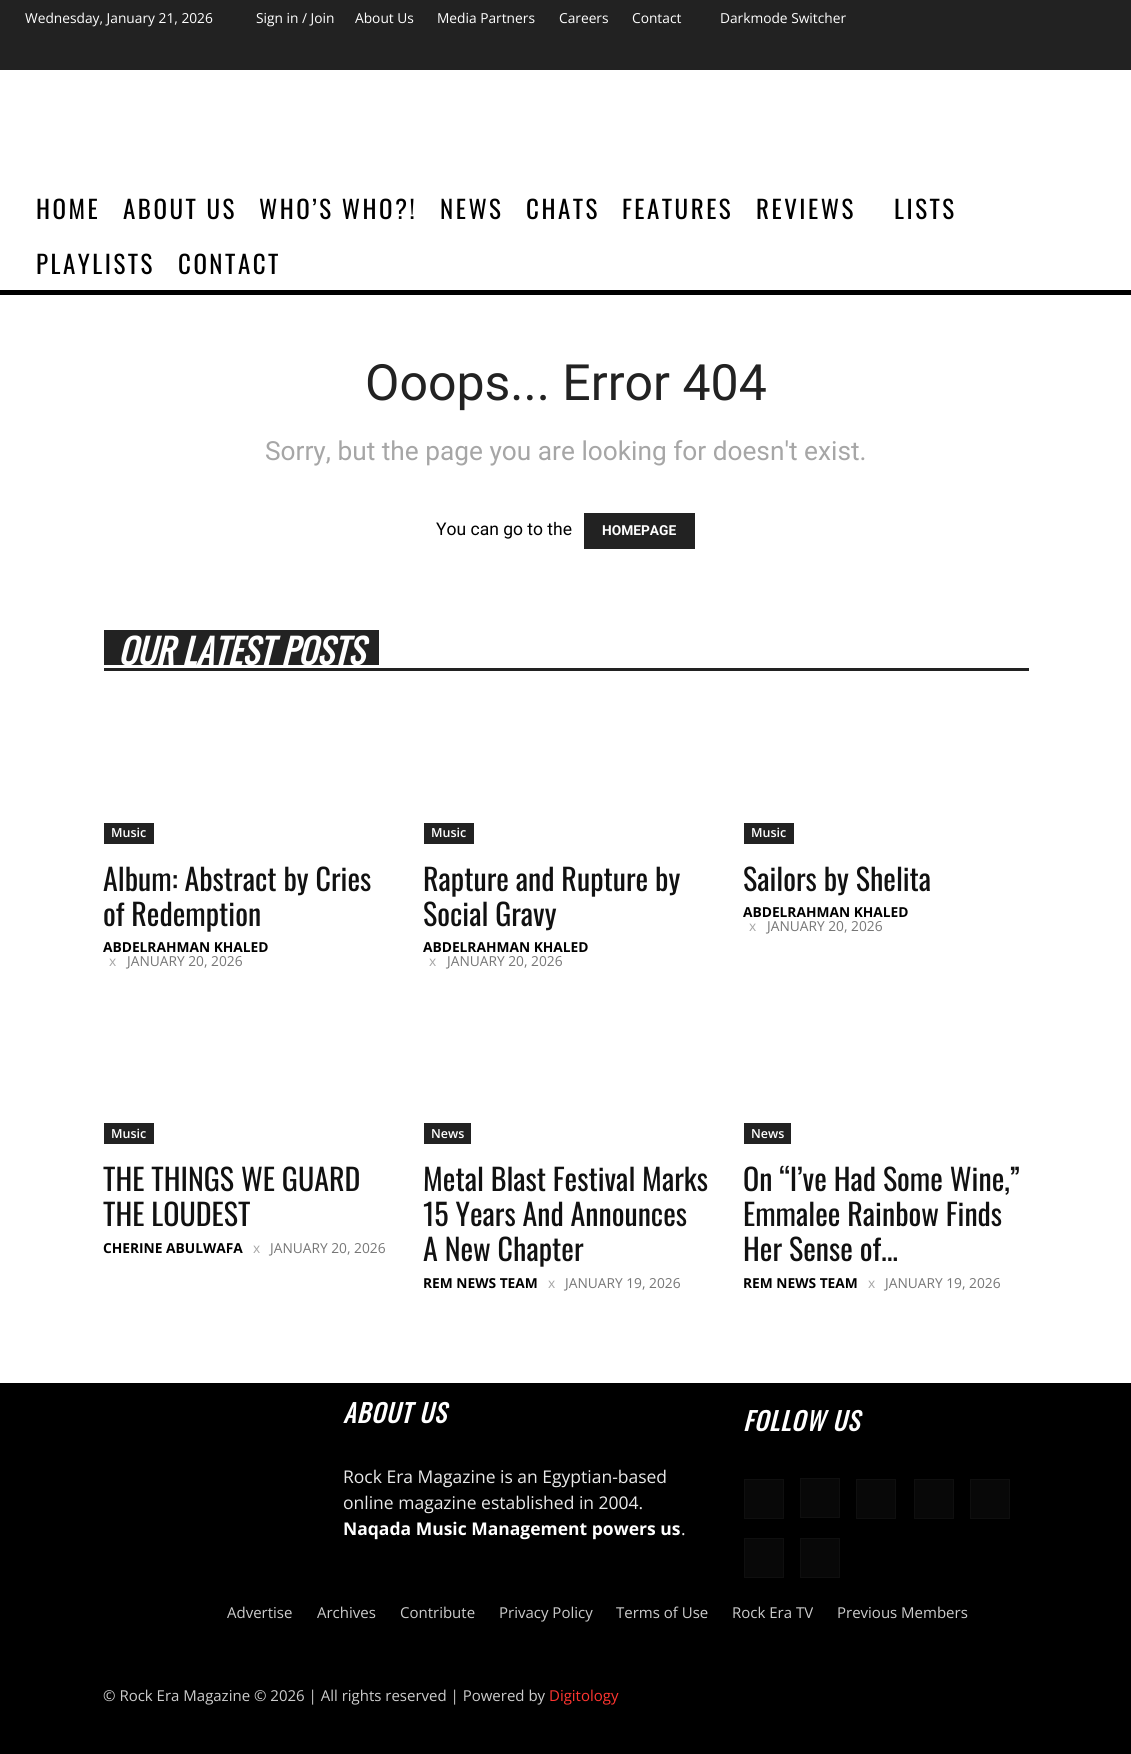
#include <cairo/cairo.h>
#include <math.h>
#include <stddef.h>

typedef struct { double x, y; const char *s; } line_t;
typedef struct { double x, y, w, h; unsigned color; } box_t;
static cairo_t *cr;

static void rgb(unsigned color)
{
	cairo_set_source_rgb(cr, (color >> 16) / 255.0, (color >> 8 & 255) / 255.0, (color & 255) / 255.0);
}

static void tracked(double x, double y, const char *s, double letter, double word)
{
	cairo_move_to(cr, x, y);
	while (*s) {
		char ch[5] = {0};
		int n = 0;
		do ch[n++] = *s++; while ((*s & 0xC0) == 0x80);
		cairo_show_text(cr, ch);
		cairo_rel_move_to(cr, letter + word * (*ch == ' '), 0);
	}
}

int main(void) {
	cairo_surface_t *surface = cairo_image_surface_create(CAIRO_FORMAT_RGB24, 1131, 1754);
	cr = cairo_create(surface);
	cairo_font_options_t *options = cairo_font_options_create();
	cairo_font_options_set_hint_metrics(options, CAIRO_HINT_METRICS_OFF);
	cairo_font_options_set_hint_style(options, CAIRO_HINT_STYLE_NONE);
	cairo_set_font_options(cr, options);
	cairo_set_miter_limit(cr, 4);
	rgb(0xffffff);
	cairo_paint(cr);
	{
		static const box_t items[] = {
			{0, 0, 1131, 70, 0x222222},
			{0, 290, 1131, 5, 0x000000},
			{584, 513, 111, 36, 0x222222},
			{104, 668, 925, 3, 0x222222},
			{104, 630, 275, 35, 0x222222},
			{104, 823, 50, 21, 0x222222},
			{424, 823, 50, 21, 0x222222},
			{744, 823, 50, 21, 0x222222},
			{104, 1123, 50, 21, 0x222222},
			{424, 1123, 47, 21, 0x222222},
			{744, 1123, 47, 21, 0x222222},
			{0, 1383, 1131, 371, 0x000000},
		};
		for (size_t i = 0; i < sizeof items / sizeof *items; i++) {
			rgb(items[i].color);
			cairo_rectangle(cr, items[i].x, items[i].y, items[i].w, items[i].h);
			cairo_fill(cr);
		}
	}
	rgb(0x080808);
	cairo_rectangle(cr, 744.5, 1479.5, 39, 39);
	cairo_fill_preserve(cr);
	rgb(0x0f0f0f);
	cairo_set_line_width(cr, 1);
	cairo_stroke(cr);
	rgb(0x080808);
	cairo_rectangle(cr, 800.5, 1478.5, 39, 39);
	cairo_fill_preserve(cr);
	rgb(0x0f0f0f);
	cairo_stroke(cr);
	rgb(0x080808);
	cairo_rectangle(cr, 856.5, 1479.5, 39, 39);
	cairo_fill_preserve(cr);
	rgb(0x0f0f0f);
	cairo_stroke(cr);
	rgb(0x080808);
	cairo_rectangle(cr, 914.5, 1479.5, 39, 39);
	cairo_fill_preserve(cr);
	rgb(0x0f0f0f);
	cairo_stroke(cr);
	rgb(0x080808);
	cairo_rectangle(cr, 970.5, 1479.5, 39, 39);
	cairo_fill_preserve(cr);
	rgb(0x0f0f0f);
	cairo_stroke(cr);
	rgb(0x080808);
	cairo_rectangle(cr, 744.5, 1538.5, 39, 39);
	cairo_fill_preserve(cr);
	rgb(0x0f0f0f);
	cairo_stroke(cr);
	rgb(0x080808);
	cairo_rectangle(cr, 800.5, 1538.5, 39, 39);
	cairo_fill_preserve(cr);
	rgb(0x0f0f0f);
	cairo_stroke(cr);
	cairo_select_font_face(cr, "Open Sans", CAIRO_FONT_SLANT_NORMAL, CAIRO_FONT_WEIGHT_NORMAL);
	cairo_set_font_size(cr, 13.75);
	rgb(0xffffff);
	{
		static const line_t items[] = {
			{25, 23, "Wednesday, January 21, 2026"},
			{256, 23, "Sign in / Join"},
			{355, 23, "About Us"},
			{437, 23, "Media Partners"},
			{559, 23, "Careers"},
			{632, 23, "Contact"},
			{720, 23, "Darkmode Switcher"},
		};
		for (size_t i = 0; i < sizeof items / sizeof *items; i++) {
			cairo_move_to(cr, items[i].x, items[i].y);
			cairo_show_text(cr, items[i].s);
		}
	}
	cairo_select_font_face(cr, "Oswald", CAIRO_FONT_SLANT_NORMAL, CAIRO_FONT_WEIGHT_NORMAL);
	cairo_set_font_size(cr, 25);
	rgb(0x000000);
	{
		static const line_t items[] = {
			{36, 219, "HOME"},
			{123, 219, "ABOUT US"},
			{259, 219, "WHO’S WHO?!"},
			{440, 219, "NEWS"},
			{526, 219, "CHATS"},
			{622, 219, "FEATURES"},
			{756, 219, "REVIEWS"},
			{894, 219, "LISTS"},
			{36, 274, "PLAYLISTS"},
			{178, 274, "CONTACT"},
		};
		for (size_t i = 0; i < sizeof items / sizeof *items; i++) {
			tracked(items[i].x, items[i].y, items[i].s, 2.5, 0);
		}
	}
	cairo_select_font_face(cr, "Roboto", CAIRO_FONT_SLANT_NORMAL, CAIRO_FONT_WEIGHT_NORMAL);
	cairo_set_font_size(cr, 50);
	rgb(0x222222);
	cairo_move_to(cr, 365, 400);
	cairo_show_text(cr, "Ooops... Error 404");
	cairo_set_font_size(cr, 26.25);
	rgb(0xa6a6a6);
	cairo_move_to(cr, 265, 460);
	cairo_show_text(cr, "Sorry, but the page you are looking for doesn't exist.");
	cairo_set_font_size(cr, 17.5);
	rgb(0x000000);
	cairo_move_to(cr, 436, 535);
	cairo_show_text(cr, "You can go to the");
	cairo_select_font_face(cr, "Roboto", CAIRO_FONT_SLANT_NORMAL, CAIRO_FONT_WEIGHT_BOLD);
	cairo_set_font_size(cr, 13.75);
	rgb(0xffffff);
	cairo_move_to(cr, 602, 535);
	cairo_show_text(cr, "HOMEPAGE");
	cairo_select_font_face(cr, "Oswald", CAIRO_FONT_SLANT_ITALIC, CAIRO_FONT_WEIGHT_BOLD);
	cairo_set_font_size(cr, 35);
	cairo_move_to(cr, 118, 665);
	cairo_show_text(cr, "OUR LATEST POSTS");
	cairo_select_font_face(cr, "Open Sans SemiBold", CAIRO_FONT_SLANT_NORMAL, CAIRO_FONT_WEIGHT_NORMAL);
	cairo_set_font_size(cr, 12.5);
	cairo_move_to(cr, 111, 837);
	cairo_show_text(cr, "Music");
	cairo_select_font_face(cr, "Oswald", CAIRO_FONT_SLANT_NORMAL, CAIRO_FONT_WEIGHT_NORMAL);
	cairo_set_font_size(cr, 30);
	rgb(0x111111);
	cairo_move_to(cr, 103, 891);
	cairo_show_text(cr, "Album: Abstract by Cries");
	cairo_move_to(cr, 103, 926);
	cairo_show_text(cr, "of Redemption");
	cairo_select_font_face(cr, "Open Sans", CAIRO_FONT_SLANT_NORMAL, CAIRO_FONT_WEIGHT_BOLD);
	cairo_set_font_size(cr, 13.75);
	rgb(0x000000);
	cairo_move_to(cr, 103, 952);
	cairo_show_text(cr, "ABDELRAHMAN KHALED");
	cairo_select_font_face(cr, "Open Sans", CAIRO_FONT_SLANT_NORMAL, CAIRO_FONT_WEIGHT_NORMAL);
	rgb(0xa6a6a6);
	cairo_move_to(cr, 109, 966);
	cairo_show_text(cr, "x");
	rgb(0x767676);
	cairo_move_to(cr, 127, 966);
	cairo_show_text(cr, "JANUARY 20, 2026");
	cairo_select_font_face(cr, "Open Sans SemiBold", CAIRO_FONT_SLANT_NORMAL, CAIRO_FONT_WEIGHT_NORMAL);
	cairo_set_font_size(cr, 12.5);
	rgb(0xffffff);
	cairo_move_to(cr, 431, 837);
	cairo_show_text(cr, "Music");
	cairo_select_font_face(cr, "Oswald", CAIRO_FONT_SLANT_NORMAL, CAIRO_FONT_WEIGHT_NORMAL);
	cairo_set_font_size(cr, 30);
	rgb(0x111111);
	cairo_move_to(cr, 423, 891);
	cairo_show_text(cr, "Rapture and Rupture by");
	cairo_move_to(cr, 423, 926);
	cairo_show_text(cr, "Social Gravy");
	cairo_select_font_face(cr, "Open Sans", CAIRO_FONT_SLANT_NORMAL, CAIRO_FONT_WEIGHT_BOLD);
	cairo_set_font_size(cr, 13.75);
	rgb(0x000000);
	cairo_move_to(cr, 423, 952);
	cairo_show_text(cr, "ABDELRAHMAN KHALED");
	cairo_select_font_face(cr, "Open Sans", CAIRO_FONT_SLANT_NORMAL, CAIRO_FONT_WEIGHT_NORMAL);
	rgb(0xa6a6a6);
	cairo_move_to(cr, 429, 966);
	cairo_show_text(cr, "x");
	rgb(0x767676);
	cairo_move_to(cr, 447, 966);
	cairo_show_text(cr, "JANUARY 20, 2026");
	cairo_select_font_face(cr, "Open Sans SemiBold", CAIRO_FONT_SLANT_NORMAL, CAIRO_FONT_WEIGHT_NORMAL);
	cairo_set_font_size(cr, 12.5);
	rgb(0xffffff);
	cairo_move_to(cr, 751, 837);
	cairo_show_text(cr, "Music");
	cairo_select_font_face(cr, "Oswald", CAIRO_FONT_SLANT_NORMAL, CAIRO_FONT_WEIGHT_NORMAL);
	cairo_set_font_size(cr, 30);
	rgb(0x111111);
	cairo_move_to(cr, 743, 891);
	cairo_show_text(cr, "Sailors by Shelita");
	cairo_select_font_face(cr, "Open Sans", CAIRO_FONT_SLANT_NORMAL, CAIRO_FONT_WEIGHT_BOLD);
	cairo_set_font_size(cr, 13.75);
	rgb(0x000000);
	cairo_move_to(cr, 743, 917);
	cairo_show_text(cr, "ABDELRAHMAN KHALED");
	cairo_select_font_face(cr, "Open Sans", CAIRO_FONT_SLANT_NORMAL, CAIRO_FONT_WEIGHT_NORMAL);
	rgb(0xa6a6a6);
	cairo_move_to(cr, 749, 931);
	cairo_show_text(cr, "x");
	rgb(0x767676);
	cairo_move_to(cr, 767, 931);
	cairo_show_text(cr, "JANUARY 20, 2026");
	cairo_select_font_face(cr, "Open Sans SemiBold", CAIRO_FONT_SLANT_NORMAL, CAIRO_FONT_WEIGHT_NORMAL);
	cairo_set_font_size(cr, 12.5);
	rgb(0xffffff);
	cairo_move_to(cr, 111, 1138);
	cairo_show_text(cr, "Music");
	cairo_select_font_face(cr, "Oswald", CAIRO_FONT_SLANT_NORMAL, CAIRO_FONT_WEIGHT_NORMAL);
	cairo_set_font_size(cr, 30);
	rgb(0x111111);
	cairo_move_to(cr, 103, 1191);
	cairo_show_text(cr, "THE THINGS WE GUARD");
	cairo_move_to(cr, 103, 1226);
	cairo_show_text(cr, "THE LOUDEST");
	cairo_select_font_face(cr, "Open Sans", CAIRO_FONT_SLANT_NORMAL, CAIRO_FONT_WEIGHT_BOLD);
	cairo_set_font_size(cr, 13.75);
	rgb(0x000000);
	cairo_move_to(cr, 103, 1253);
	cairo_show_text(cr, "CHERINE ABULWAFA");
	cairo_select_font_face(cr, "Open Sans", CAIRO_FONT_SLANT_NORMAL, CAIRO_FONT_WEIGHT_NORMAL);
	rgb(0xa6a6a6);
	cairo_move_to(cr, 253, 1253);
	cairo_show_text(cr, "x");
	rgb(0x767676);
	cairo_move_to(cr, 270, 1253);
	cairo_show_text(cr, "JANUARY 20, 2026");
	cairo_select_font_face(cr, "Open Sans SemiBold", CAIRO_FONT_SLANT_NORMAL, CAIRO_FONT_WEIGHT_NORMAL);
	cairo_set_font_size(cr, 12.5);
	rgb(0xffffff);
	cairo_move_to(cr, 431, 1138);
	cairo_show_text(cr, "News");
	cairo_select_font_face(cr, "Oswald", CAIRO_FONT_SLANT_NORMAL, CAIRO_FONT_WEIGHT_NORMAL);
	cairo_set_font_size(cr, 30);
	rgb(0x111111);
	{
		static const line_t items[] = {
			{423, 1191, "Metal Blast Festival Marks"},
			{423, 1226, "15 Years And Announces"},
			{423, 1261, "A New Chapter"},
		};
		for (size_t i = 0; i < sizeof items / sizeof *items; i++) {
			cairo_move_to(cr, items[i].x, items[i].y);
			cairo_show_text(cr, items[i].s);
		}
	}
	cairo_select_font_face(cr, "Open Sans", CAIRO_FONT_SLANT_NORMAL, CAIRO_FONT_WEIGHT_BOLD);
	cairo_set_font_size(cr, 13.75);
	rgb(0x000000);
	cairo_move_to(cr, 423, 1288);
	cairo_show_text(cr, "REM NEWS TEAM");
	cairo_select_font_face(cr, "Open Sans", CAIRO_FONT_SLANT_NORMAL, CAIRO_FONT_WEIGHT_NORMAL);
	rgb(0xa6a6a6);
	cairo_move_to(cr, 548, 1288);
	cairo_show_text(cr, "x");
	rgb(0x767676);
	cairo_move_to(cr, 565, 1288);
	cairo_show_text(cr, "JANUARY 19, 2026");
	cairo_select_font_face(cr, "Open Sans SemiBold", CAIRO_FONT_SLANT_NORMAL, CAIRO_FONT_WEIGHT_NORMAL);
	cairo_set_font_size(cr, 12.5);
	rgb(0xffffff);
	cairo_move_to(cr, 751, 1138);
	cairo_show_text(cr, "News");
	cairo_select_font_face(cr, "Oswald", CAIRO_FONT_SLANT_NORMAL, CAIRO_FONT_WEIGHT_NORMAL);
	cairo_set_font_size(cr, 30);
	rgb(0x111111);
	{
		static const line_t items[] = {
			{743, 1191, "On “I’ve Had Some Wine,”"},
			{743, 1226, "Emmalee Rainbow Finds"},
			{743, 1261, "Her Sense of..."},
		};
		for (size_t i = 0; i < sizeof items / sizeof *items; i++) {
			cairo_move_to(cr, items[i].x, items[i].y);
			cairo_show_text(cr, items[i].s);
		}
	}
	cairo_select_font_face(cr, "Open Sans", CAIRO_FONT_SLANT_NORMAL, CAIRO_FONT_WEIGHT_BOLD);
	cairo_set_font_size(cr, 13.75);
	rgb(0x000000);
	cairo_move_to(cr, 743, 1288);
	cairo_show_text(cr, "REM NEWS TEAM");
	cairo_select_font_face(cr, "Open Sans", CAIRO_FONT_SLANT_NORMAL, CAIRO_FONT_WEIGHT_NORMAL);
	rgb(0xa6a6a6);
	cairo_move_to(cr, 868, 1288);
	cairo_show_text(cr, "x");
	rgb(0x767676);
	cairo_move_to(cr, 885, 1288);
	cairo_show_text(cr, "JANUARY 19, 2026");
	cairo_select_font_face(cr, "Oswald", CAIRO_FONT_SLANT_ITALIC, CAIRO_FONT_WEIGHT_BOLD);
	cairo_set_font_size(cr, 25);
	rgb(0xffffff);
	tracked(343, 1423, "ABOUT US", 1.25, 0);
	cairo_select_font_face(cr, "Open Sans", CAIRO_FONT_SLANT_NORMAL, CAIRO_FONT_WEIGHT_NORMAL);
	cairo_set_font_size(cr, 17.5);
	rgb(0xeaeaea);
	cairo_move_to(cr, 343, 1483);
	cairo_show_text(cr, "Rock Era Magazine is an Egyptian-based");
	cairo_move_to(cr, 343, 1509);
	cairo_show_text(cr, "online magazine established in 2004.");
	cairo_select_font_face(cr, "Open Sans", CAIRO_FONT_SLANT_NORMAL, CAIRO_FONT_WEIGHT_BOLD);
	rgb(0xffffff);
	cairo_move_to(cr, 343, 1535);
	cairo_show_text(cr, "Naqada Music Management powers us");
	cairo_select_font_face(cr, "Open Sans", CAIRO_FONT_SLANT_NORMAL, CAIRO_FONT_WEIGHT_NORMAL);
	rgb(0xeaeaea);
	cairo_move_to(cr, 681, 1535);
	cairo_show_text(cr, ".");
	cairo_select_font_face(cr, "Oswald", CAIRO_FONT_SLANT_ITALIC, CAIRO_FONT_WEIGHT_BOLD);
	cairo_set_font_size(cr, 25);
	rgb(0xffffff);
	tracked(743, 1431, "FOLLOW US", 1.25, 0);
	cairo_select_font_face(cr, "Open Sans", CAIRO_FONT_SLANT_NORMAL, CAIRO_FONT_WEIGHT_NORMAL);
	cairo_set_font_size(cr, 15);
	rgb(0xcccccc);
	{
		static const line_t items[] = {
			{227, 1618, "Advertise"},
			{317, 1618, "Archives"},
			{400, 1618, "Contribute"},
			{499, 1618, "Privacy Policy"},
			{616, 1618, "Terms of Use"},
			{732, 1618, "Rock Era TV"},
			{837, 1618, "Previous Members"},
			{103, 1701, "© Rock Era Magazine © 2026 | All rights reserved | Powered by"},
		};
		for (size_t i = 0; i < sizeof items / sizeof *items; i++) {
			cairo_move_to(cr, items[i].x, items[i].y);
			cairo_show_text(cr, items[i].s);
		}
	}
	rgb(0xff3530);
	cairo_move_to(cr, 549, 1701);
	cairo_show_text(cr, "Digitology");
	cairo_surface_write_to_png(surface, "page.png");
	cairo_font_options_destroy(options);
	cairo_destroy(cr);
	cairo_surface_destroy(surface);
	return 0;
}
